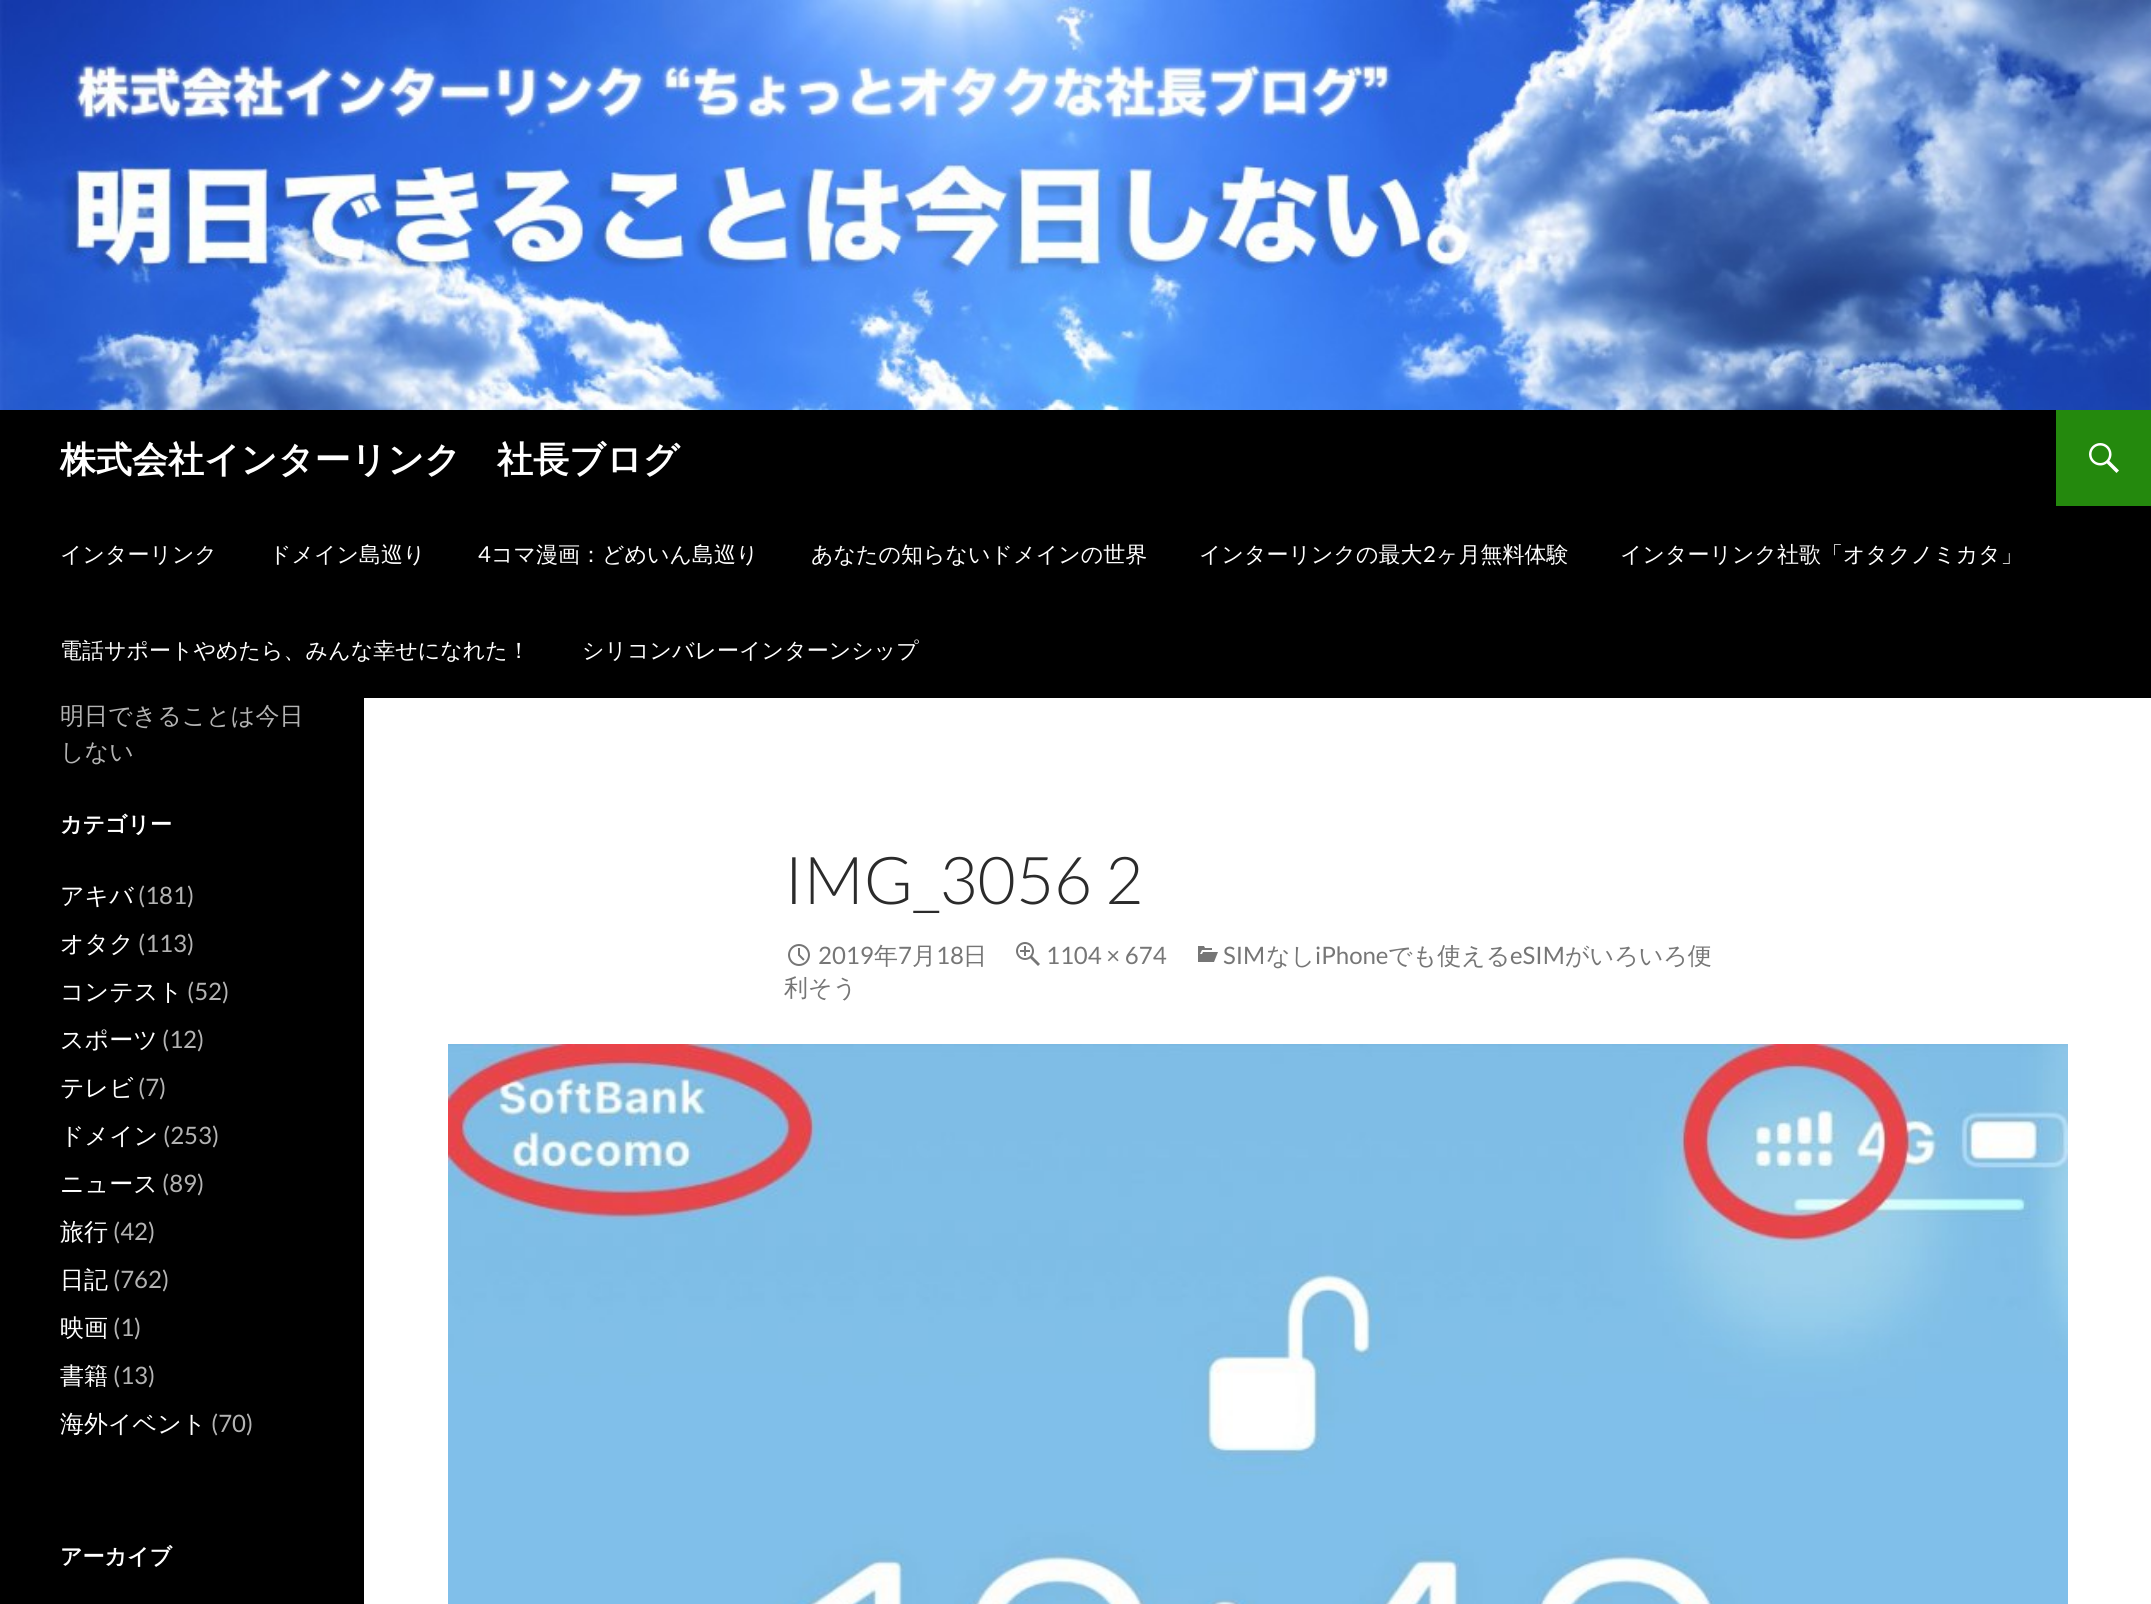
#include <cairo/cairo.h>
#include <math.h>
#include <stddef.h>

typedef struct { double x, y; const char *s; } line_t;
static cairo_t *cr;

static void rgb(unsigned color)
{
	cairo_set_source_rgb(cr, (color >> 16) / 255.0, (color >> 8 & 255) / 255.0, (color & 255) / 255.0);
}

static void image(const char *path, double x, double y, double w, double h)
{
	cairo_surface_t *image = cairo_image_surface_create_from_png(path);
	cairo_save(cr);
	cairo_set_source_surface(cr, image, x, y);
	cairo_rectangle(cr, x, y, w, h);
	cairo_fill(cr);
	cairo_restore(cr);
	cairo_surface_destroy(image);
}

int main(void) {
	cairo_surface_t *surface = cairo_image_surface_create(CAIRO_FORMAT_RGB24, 2151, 1604);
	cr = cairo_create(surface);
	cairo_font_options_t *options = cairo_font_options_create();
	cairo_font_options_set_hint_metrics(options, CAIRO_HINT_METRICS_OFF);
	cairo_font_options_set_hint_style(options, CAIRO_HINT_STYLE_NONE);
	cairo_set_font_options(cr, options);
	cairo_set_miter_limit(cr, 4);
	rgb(0xffffff);
	cairo_paint(cr);
	image("img/1.png", 0, 0, 2151, 410);
	rgb(0x000000);
	cairo_rectangle(cr, 0, 410, 2151, 288);
	cairo_fill(cr);
	rgb(0x24890d);
	cairo_rectangle(cr, 2056, 410, 95, 96);
	cairo_fill(cr);
	image("img/2.png", 2089, 443, 30, 30);
	rgb(0x000000);
	cairo_rectangle(cr, 0, 698, 364, 906);
	cairo_fill(cr);
	image("img/3.png", 788, 944, 22, 22);
	image("img/4.png", 1198, 946, 20, 16);
	image("img/5.png", 1016, 942, 24, 24);
	image("img/6.png", 448, 1044, 1620, 560);
	cairo_select_font_face(cr, "WenQuanYi Zen Hei", CAIRO_FONT_SLANT_NORMAL, CAIRO_FONT_WEIGHT_BOLD);
	cairo_set_font_size(cr, 36);
	rgb(0xffffff);
	cairo_move_to(cr, 60, 472);
	cairo_show_text(cr, "株式会社インターリンク　社長ブログ");
	cairo_select_font_face(cr, "WenQuanYi Zen Hei Medium", CAIRO_FONT_SLANT_NORMAL, CAIRO_FONT_WEIGHT_NORMAL);
	cairo_set_font_size(cr, 22);
	cairo_move_to(cr, 60, 562);
	cairo_show_text(cr, "インターリンク");
	cairo_move_to(cr, 269, 562);
	cairo_show_text(cr, "ドメイン島巡り");
	cairo_select_font_face(cr, "Lato", CAIRO_FONT_SLANT_NORMAL, CAIRO_FONT_WEIGHT_NORMAL);
	cairo_move_to(cr, 478, 562);
	cairo_show_text(cr, "4");
	cairo_select_font_face(cr, "WenQuanYi Zen Hei Medium", CAIRO_FONT_SLANT_NORMAL, CAIRO_FONT_WEIGHT_NORMAL);
	{
		static const line_t items[] = {
			{491, 562, "コマ漫画：どめいん島巡り"},
			{811, 562, "あなたの知らないドメインの世界"},
			{1199, 562, "インターリンクの最大"},
		};
		for (size_t i = 0; i < sizeof items / sizeof *items; i++) {
			cairo_move_to(cr, items[i].x, items[i].y);
			cairo_show_text(cr, items[i].s);
		}
	}
	cairo_select_font_face(cr, "Lato", CAIRO_FONT_SLANT_NORMAL, CAIRO_FONT_WEIGHT_NORMAL);
	cairo_move_to(cr, 1423, 562);
	cairo_show_text(cr, "2");
	cairo_select_font_face(cr, "WenQuanYi Zen Hei Medium", CAIRO_FONT_SLANT_NORMAL, CAIRO_FONT_WEIGHT_NORMAL);
	{
		static const line_t items[] = {
			{1436, 562, "ヶ月無料体験"},
			{1620, 562, "インターリンク社歌「オタクノミカタ」"},
			{60, 658, "電話サポートやめたら、みんな幸せになれた！"},
			{582, 658, "シリコンバレーインターンシップ"},
		};
		for (size_t i = 0; i < sizeof items / sizeof *items; i++) {
			cairo_move_to(cr, items[i].x, items[i].y);
			cairo_show_text(cr, items[i].s);
		}
	}
	cairo_set_font_size(cr, 24);
	rgb(0xb3b3b3);
	cairo_move_to(cr, 60, 724);
	cairo_show_text(cr, "明日できることは今日");
	cairo_move_to(cr, 60, 760);
	cairo_show_text(cr, "しない");
	cairo_select_font_face(cr, "WenQuanYi Zen Hei", CAIRO_FONT_SLANT_NORMAL, CAIRO_FONT_WEIGHT_BOLD);
	cairo_set_font_size(cr, 22);
	rgb(0xffffff);
	cairo_move_to(cr, 60, 832);
	cairo_show_text(cr, "カテゴリー");
	cairo_select_font_face(cr, "WenQuanYi Zen Hei Medium", CAIRO_FONT_SLANT_NORMAL, CAIRO_FONT_WEIGHT_NORMAL);
	cairo_set_font_size(cr, 24);
	cairo_move_to(cr, 60, 904);
	cairo_show_text(cr, "アキバ");
	cairo_select_font_face(cr, "Lato", CAIRO_FONT_SLANT_NORMAL, CAIRO_FONT_WEIGHT_NORMAL);
	rgb(0xb3b3b3);
	cairo_move_to(cr, 138, 904);
	cairo_show_text(cr, "(181)");
	cairo_select_font_face(cr, "WenQuanYi Zen Hei Medium", CAIRO_FONT_SLANT_NORMAL, CAIRO_FONT_WEIGHT_NORMAL);
	rgb(0xffffff);
	cairo_move_to(cr, 60, 952);
	cairo_show_text(cr, "オタク");
	cairo_select_font_face(cr, "Lato", CAIRO_FONT_SLANT_NORMAL, CAIRO_FONT_WEIGHT_NORMAL);
	rgb(0xb3b3b3);
	cairo_move_to(cr, 138, 952);
	cairo_show_text(cr, "(113)");
	cairo_select_font_face(cr, "WenQuanYi Zen Hei Medium", CAIRO_FONT_SLANT_NORMAL, CAIRO_FONT_WEIGHT_NORMAL);
	rgb(0xffffff);
	cairo_move_to(cr, 60, 1000);
	cairo_show_text(cr, "コンテスト");
	cairo_select_font_face(cr, "Lato", CAIRO_FONT_SLANT_NORMAL, CAIRO_FONT_WEIGHT_NORMAL);
	rgb(0xb3b3b3);
	cairo_move_to(cr, 187, 1000);
	cairo_show_text(cr, "(52)");
	cairo_select_font_face(cr, "WenQuanYi Zen Hei Medium", CAIRO_FONT_SLANT_NORMAL, CAIRO_FONT_WEIGHT_NORMAL);
	rgb(0xffffff);
	cairo_move_to(cr, 60, 1048);
	cairo_show_text(cr, "スポーツ");
	cairo_select_font_face(cr, "Lato", CAIRO_FONT_SLANT_NORMAL, CAIRO_FONT_WEIGHT_NORMAL);
	rgb(0xb3b3b3);
	cairo_move_to(cr, 162, 1048);
	cairo_show_text(cr, "(12)");
	cairo_select_font_face(cr, "WenQuanYi Zen Hei Medium", CAIRO_FONT_SLANT_NORMAL, CAIRO_FONT_WEIGHT_NORMAL);
	rgb(0xffffff);
	cairo_move_to(cr, 60, 1096);
	cairo_show_text(cr, "テレビ");
	cairo_select_font_face(cr, "Lato", CAIRO_FONT_SLANT_NORMAL, CAIRO_FONT_WEIGHT_NORMAL);
	rgb(0xb3b3b3);
	cairo_move_to(cr, 138, 1096);
	cairo_show_text(cr, "(7)");
	cairo_select_font_face(cr, "WenQuanYi Zen Hei Medium", CAIRO_FONT_SLANT_NORMAL, CAIRO_FONT_WEIGHT_NORMAL);
	rgb(0xffffff);
	cairo_move_to(cr, 60, 1144);
	cairo_show_text(cr, "ドメイン");
	cairo_select_font_face(cr, "Lato", CAIRO_FONT_SLANT_NORMAL, CAIRO_FONT_WEIGHT_NORMAL);
	rgb(0xb3b3b3);
	cairo_move_to(cr, 163, 1144);
	cairo_show_text(cr, "(253)");
	cairo_select_font_face(cr, "WenQuanYi Zen Hei Medium", CAIRO_FONT_SLANT_NORMAL, CAIRO_FONT_WEIGHT_NORMAL);
	rgb(0xffffff);
	cairo_move_to(cr, 60, 1192);
	cairo_show_text(cr, "ニュース");
	cairo_select_font_face(cr, "Lato", CAIRO_FONT_SLANT_NORMAL, CAIRO_FONT_WEIGHT_NORMAL);
	rgb(0xb3b3b3);
	cairo_move_to(cr, 162, 1192);
	cairo_show_text(cr, "(89)");
	cairo_select_font_face(cr, "WenQuanYi Zen Hei Medium", CAIRO_FONT_SLANT_NORMAL, CAIRO_FONT_WEIGHT_NORMAL);
	rgb(0xffffff);
	cairo_move_to(cr, 60, 1240);
	cairo_show_text(cr, "旅行");
	cairo_select_font_face(cr, "Lato", CAIRO_FONT_SLANT_NORMAL, CAIRO_FONT_WEIGHT_NORMAL);
	rgb(0xb3b3b3);
	cairo_move_to(cr, 113, 1240);
	cairo_show_text(cr, "(42)");
	cairo_select_font_face(cr, "WenQuanYi Zen Hei Medium", CAIRO_FONT_SLANT_NORMAL, CAIRO_FONT_WEIGHT_NORMAL);
	rgb(0xffffff);
	cairo_move_to(cr, 60, 1288);
	cairo_show_text(cr, "日記");
	cairo_select_font_face(cr, "Lato", CAIRO_FONT_SLANT_NORMAL, CAIRO_FONT_WEIGHT_NORMAL);
	rgb(0xb3b3b3);
	cairo_move_to(cr, 113, 1288);
	cairo_show_text(cr, "(762)");
	cairo_select_font_face(cr, "WenQuanYi Zen Hei Medium", CAIRO_FONT_SLANT_NORMAL, CAIRO_FONT_WEIGHT_NORMAL);
	rgb(0xffffff);
	cairo_move_to(cr, 60, 1336);
	cairo_show_text(cr, "映画");
	cairo_select_font_face(cr, "Lato", CAIRO_FONT_SLANT_NORMAL, CAIRO_FONT_WEIGHT_NORMAL);
	rgb(0xb3b3b3);
	cairo_move_to(cr, 113, 1336);
	cairo_show_text(cr, "(1)");
	cairo_select_font_face(cr, "WenQuanYi Zen Hei Medium", CAIRO_FONT_SLANT_NORMAL, CAIRO_FONT_WEIGHT_NORMAL);
	rgb(0xffffff);
	cairo_move_to(cr, 60, 1384);
	cairo_show_text(cr, "書籍");
	cairo_select_font_face(cr, "Lato", CAIRO_FONT_SLANT_NORMAL, CAIRO_FONT_WEIGHT_NORMAL);
	rgb(0xb3b3b3);
	cairo_move_to(cr, 113, 1384);
	cairo_show_text(cr, "(13)");
	cairo_select_font_face(cr, "WenQuanYi Zen Hei Medium", CAIRO_FONT_SLANT_NORMAL, CAIRO_FONT_WEIGHT_NORMAL);
	rgb(0xffffff);
	cairo_move_to(cr, 60, 1432);
	cairo_show_text(cr, "海外イベント");
	cairo_select_font_face(cr, "Lato", CAIRO_FONT_SLANT_NORMAL, CAIRO_FONT_WEIGHT_NORMAL);
	rgb(0xb3b3b3);
	cairo_move_to(cr, 211, 1432);
	cairo_show_text(cr, "(70)");
	cairo_select_font_face(cr, "WenQuanYi Zen Hei", CAIRO_FONT_SLANT_NORMAL, CAIRO_FONT_WEIGHT_BOLD);
	cairo_set_font_size(cr, 22);
	rgb(0xffffff);
	cairo_move_to(cr, 60, 1564);
	cairo_show_text(cr, "アーカイブ");
	cairo_select_font_face(cr, "Lato Light", CAIRO_FONT_SLANT_NORMAL, CAIRO_FONT_WEIGHT_NORMAL);
	cairo_set_font_size(cr, 66);
	rgb(0x2b2b2b);
	cairo_move_to(cr, 784, 904);
	cairo_show_text(cr, "IMG_3056 2");
	cairo_select_font_face(cr, "Lato", CAIRO_FONT_SLANT_NORMAL, CAIRO_FONT_WEIGHT_NORMAL);
	cairo_set_font_size(cr, 24);
	rgb(0x767676);
	cairo_move_to(cr, 818, 964);
	cairo_show_text(cr, "2019");
	cairo_select_font_face(cr, "WenQuanYi Zen Hei Medium", CAIRO_FONT_SLANT_NORMAL, CAIRO_FONT_WEIGHT_NORMAL);
	cairo_move_to(cr, 874, 964);
	cairo_show_text(cr, "年");
	cairo_select_font_face(cr, "Lato", CAIRO_FONT_SLANT_NORMAL, CAIRO_FONT_WEIGHT_NORMAL);
	cairo_move_to(cr, 898, 964);
	cairo_show_text(cr, "7");
	cairo_select_font_face(cr, "WenQuanYi Zen Hei Medium", CAIRO_FONT_SLANT_NORMAL, CAIRO_FONT_WEIGHT_NORMAL);
	cairo_move_to(cr, 912, 964);
	cairo_show_text(cr, "月");
	cairo_select_font_face(cr, "Lato", CAIRO_FONT_SLANT_NORMAL, CAIRO_FONT_WEIGHT_NORMAL);
	cairo_move_to(cr, 936, 964);
	cairo_show_text(cr, "18");
	cairo_select_font_face(cr, "WenQuanYi Zen Hei Medium", CAIRO_FONT_SLANT_NORMAL, CAIRO_FONT_WEIGHT_NORMAL);
	cairo_move_to(cr, 963, 964);
	cairo_show_text(cr, "日");
	cairo_select_font_face(cr, "Lato", CAIRO_FONT_SLANT_NORMAL, CAIRO_FONT_WEIGHT_NORMAL);
	cairo_move_to(cr, 1223, 964);
	cairo_show_text(cr, "SIM");
	cairo_select_font_face(cr, "WenQuanYi Zen Hei Medium", CAIRO_FONT_SLANT_NORMAL, CAIRO_FONT_WEIGHT_NORMAL);
	cairo_move_to(cr, 1266, 964);
	cairo_show_text(cr, "なし");
	cairo_select_font_face(cr, "Lato", CAIRO_FONT_SLANT_NORMAL, CAIRO_FONT_WEIGHT_NORMAL);
	cairo_move_to(cr, 1315, 964);
	cairo_show_text(cr, "iPhone");
	cairo_select_font_face(cr, "WenQuanYi Zen Hei Medium", CAIRO_FONT_SLANT_NORMAL, CAIRO_FONT_WEIGHT_NORMAL);
	cairo_move_to(cr, 1388, 964);
	cairo_show_text(cr, "でも使える");
	cairo_select_font_face(cr, "Lato", CAIRO_FONT_SLANT_NORMAL, CAIRO_FONT_WEIGHT_NORMAL);
	cairo_move_to(cr, 1510, 964);
	cairo_show_text(cr, "eSIM");
	cairo_select_font_face(cr, "WenQuanYi Zen Hei Medium", CAIRO_FONT_SLANT_NORMAL, CAIRO_FONT_WEIGHT_NORMAL);
	cairo_move_to(cr, 1565, 964);
	cairo_show_text(cr, "がいろいろ便");
	cairo_move_to(cr, 784, 996);
	cairo_show_text(cr, "利そう");
	cairo_select_font_face(cr, "Lato", CAIRO_FONT_SLANT_NORMAL, CAIRO_FONT_WEIGHT_NORMAL);
	cairo_move_to(cr, 1046, 964);
	cairo_show_text(cr, "1104 × 674");
	cairo_surface_write_to_png(surface, "page.png");
	cairo_font_options_destroy(options);
	cairo_destroy(cr);
	cairo_surface_destroy(surface);
	return 0;
}
